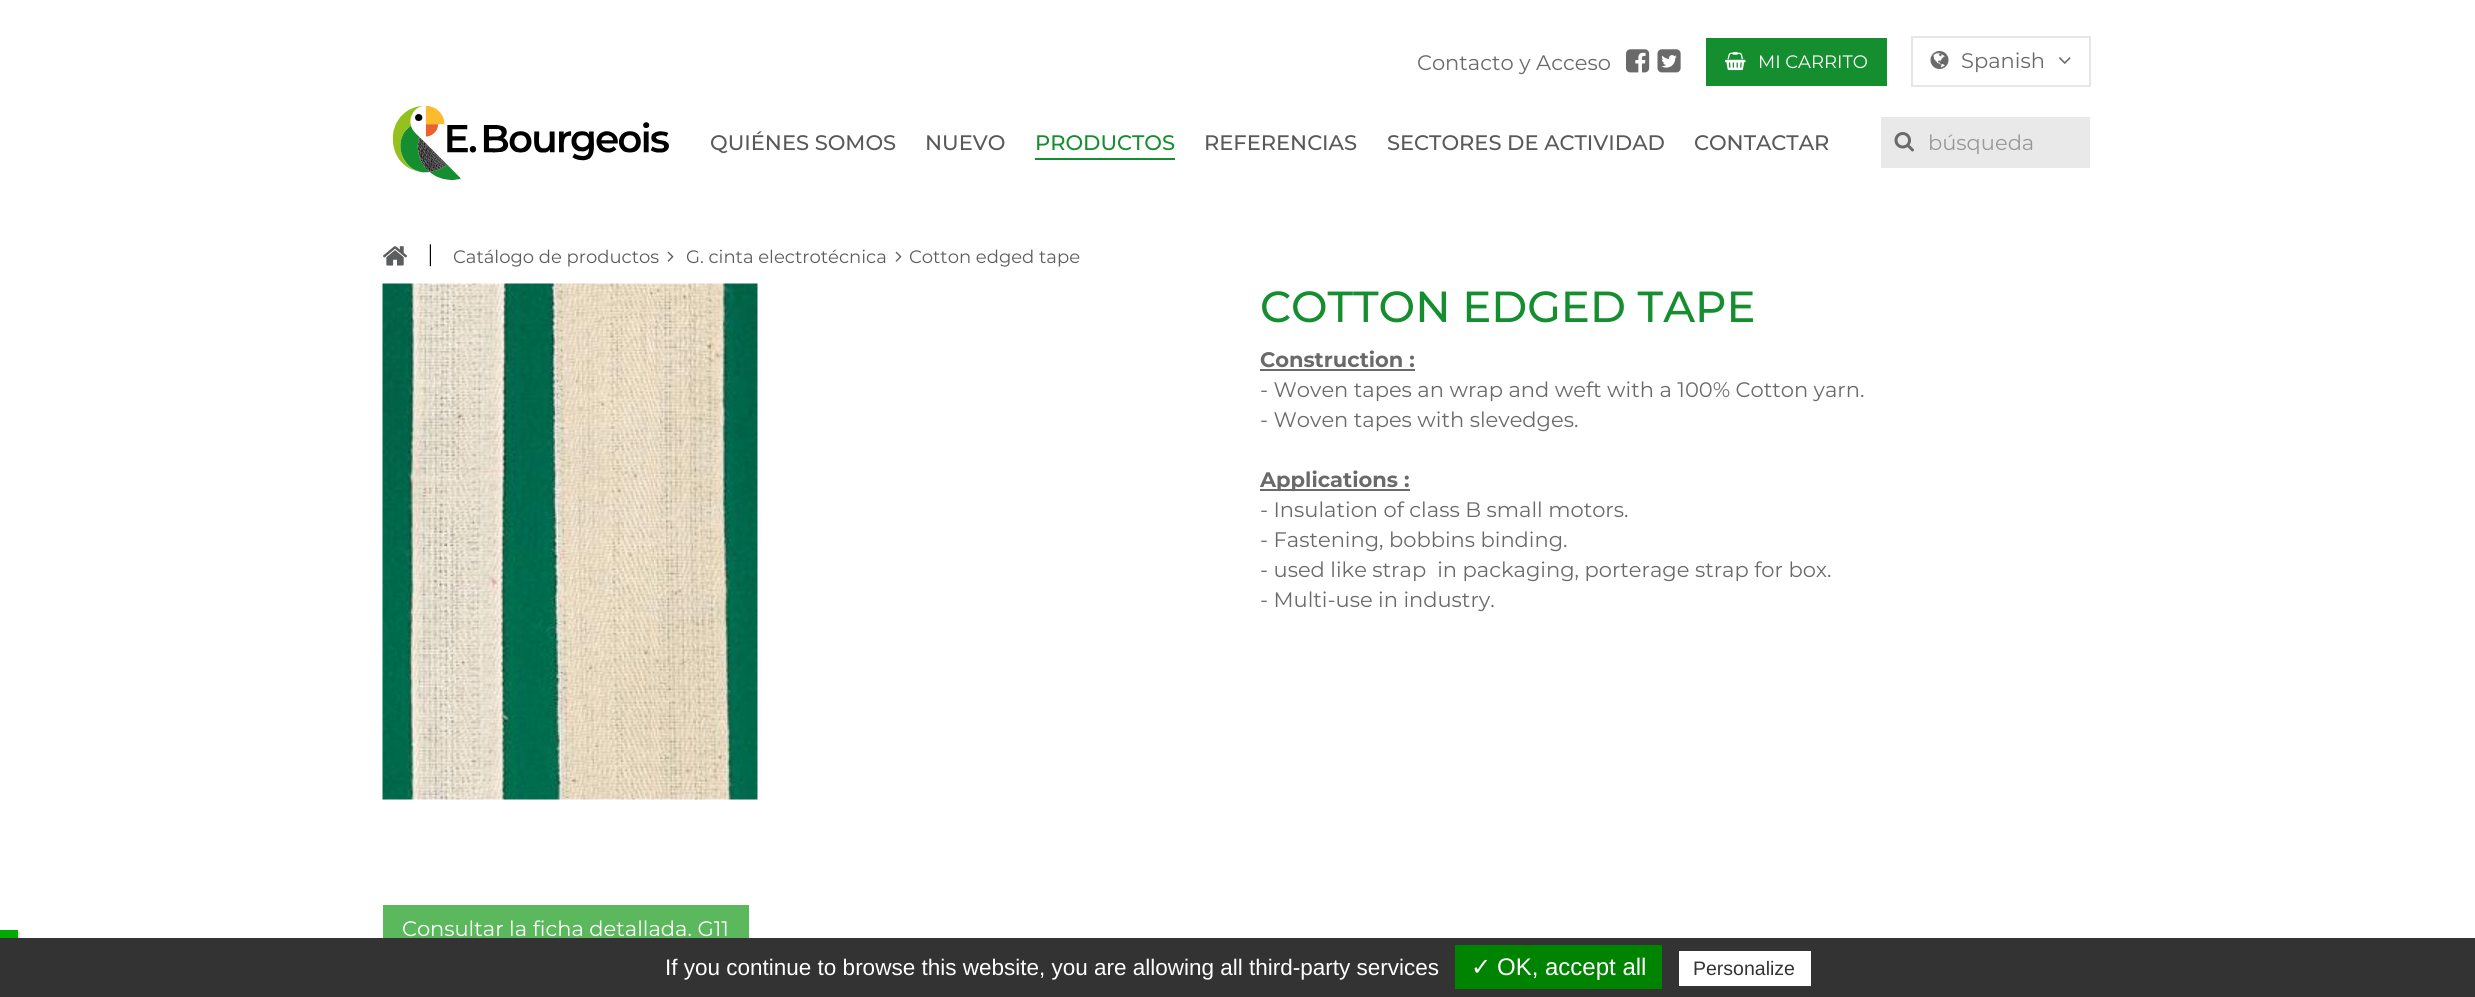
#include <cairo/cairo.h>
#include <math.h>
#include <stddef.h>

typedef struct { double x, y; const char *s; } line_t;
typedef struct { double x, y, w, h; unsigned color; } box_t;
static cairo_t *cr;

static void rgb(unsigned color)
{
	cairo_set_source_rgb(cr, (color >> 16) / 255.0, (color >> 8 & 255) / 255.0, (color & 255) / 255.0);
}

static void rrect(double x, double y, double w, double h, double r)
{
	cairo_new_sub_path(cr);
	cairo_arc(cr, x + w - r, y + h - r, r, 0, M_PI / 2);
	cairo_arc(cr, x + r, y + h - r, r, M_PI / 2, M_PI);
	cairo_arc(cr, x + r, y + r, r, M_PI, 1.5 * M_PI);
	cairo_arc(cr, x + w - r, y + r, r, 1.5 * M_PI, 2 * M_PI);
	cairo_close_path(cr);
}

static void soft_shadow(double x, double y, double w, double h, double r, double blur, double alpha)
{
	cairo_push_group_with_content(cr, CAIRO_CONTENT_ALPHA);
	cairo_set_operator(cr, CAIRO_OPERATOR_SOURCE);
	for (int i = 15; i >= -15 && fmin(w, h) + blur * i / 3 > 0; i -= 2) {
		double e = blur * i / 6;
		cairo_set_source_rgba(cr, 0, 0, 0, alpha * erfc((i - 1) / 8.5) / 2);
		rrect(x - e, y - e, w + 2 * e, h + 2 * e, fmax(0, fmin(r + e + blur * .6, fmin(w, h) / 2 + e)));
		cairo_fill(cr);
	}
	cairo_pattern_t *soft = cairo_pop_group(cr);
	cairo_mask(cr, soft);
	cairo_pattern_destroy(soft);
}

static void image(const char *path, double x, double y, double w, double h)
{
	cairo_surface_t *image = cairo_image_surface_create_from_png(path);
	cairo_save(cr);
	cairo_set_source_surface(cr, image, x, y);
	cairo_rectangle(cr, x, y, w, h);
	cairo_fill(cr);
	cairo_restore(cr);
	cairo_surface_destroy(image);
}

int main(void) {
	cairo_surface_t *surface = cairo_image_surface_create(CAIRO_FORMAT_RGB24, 2475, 997);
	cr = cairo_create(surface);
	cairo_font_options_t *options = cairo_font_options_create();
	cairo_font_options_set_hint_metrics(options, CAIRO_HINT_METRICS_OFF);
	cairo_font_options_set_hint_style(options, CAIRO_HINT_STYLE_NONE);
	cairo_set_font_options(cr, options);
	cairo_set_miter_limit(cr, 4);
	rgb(0xffffff);
	cairo_paint(cr);
	image("img/1.png", 392, 105, 277, 75);
	image("img/2.png", 1626, 49, 24, 24);
	image("img/3.png", 1657, 49, 24, 24);
	rgb(0x158e30);
	cairo_rectangle(cr, 1706, 38, 181, 48);
	cairo_fill(cr);
	image("img/4.png", 1725, 52, 21, 19);
	cairo_rectangle(cr, 1912, 37, 178, 49);
	rgb(0xe6e6e6);
	cairo_stroke(cr);
	image("img/5.png", 1930, 51, 19, 18);
	image("img/6.png", 2059, 57, 12, 7);
	rgb(0x158e30);
	cairo_rectangle(cr, 1035, 158, 140, 2);
	cairo_fill(cr);
	rgb(0xe9e9ea);
	cairo_rectangle(cr, 1881, 117, 209, 51);
	cairo_fill(cr);
	image("img/7.png", 1894, 132, 20, 20);
	image("img/8.png", 383, 246, 25, 20);
	image("img/9.png", 667, 251, 7, 11);
	image("img/9.png", 895, 251, 7, 11);
	image("img/10.png", 382, 283, 376, 517);
	{
		static const box_t items[] = {
			{1260, 369, 155, 2, 0x6b6a6a},
			{1260, 489, 150, 2, 0x6b6a6a},
			{383, 905, 366, 33, 0x5cb85c},
		};
		for (size_t i = 0; i < sizeof items / sizeof *items; i++) {
			rgb(items[i].color);
			cairo_rectangle(cr, items[i].x, items[i].y, items[i].w, items[i].h);
			cairo_fill(cr);
		}
	}
	rgb(0x555555);
	soft_shadow(0, 932, 18, 7, 0, 1.5, 1);
	rgb(0xffffff);
	soft_shadow(0, 930, 18, 8, 0, 1.5, 1);
	{
		static const box_t items[] = {
			{0, 930, 18, 8, 0x00aa00},
			{0, 938, 2475, 59, 0x333333},
			{1455, 945, 207, 44, 0x008300},
			{1679, 951, 132, 35, 0xffffff},
		};
		for (size_t i = 0; i < sizeof items / sizeof *items; i++) {
			rgb(items[i].color);
			cairo_rectangle(cr, items[i].x, items[i].y, items[i].w, items[i].h);
			cairo_fill(cr);
		}
	}
	cairo_select_font_face(cr, "Montserrat", CAIRO_FONT_SLANT_NORMAL, CAIRO_FONT_WEIGHT_NORMAL);
	cairo_set_font_size(cr, 21);
	rgb(0x6b6a6a);
	cairo_move_to(cr, 1417, 70);
	cairo_show_text(cr, "Contacto y Acceso");
	cairo_set_font_size(cr, 18);
	rgb(0xffffff);
	cairo_move_to(cr, 1758, 68);
	cairo_show_text(cr, "MI CARRITO");
	cairo_set_font_size(cr, 21);
	rgb(0x6b6a6a);
	cairo_move_to(cr, 1961, 68);
	cairo_show_text(cr, "Spanish");
	cairo_select_font_face(cr, "Montserrat Medium", CAIRO_FONT_SLANT_NORMAL, CAIRO_FONT_WEIGHT_NORMAL);
	rgb(0x595959);
	cairo_move_to(cr, 710, 150);
	cairo_show_text(cr, "QUIÉNES SOMOS");
	cairo_move_to(cr, 925, 150);
	cairo_show_text(cr, "NUEVO");
	rgb(0x158e30);
	cairo_move_to(cr, 1035, 150);
	cairo_show_text(cr, "PRODUCTOS");
	rgb(0x595959);
	{
		static const line_t items[] = {
			{1204, 150, "REFERENCIAS"},
			{1387, 150, "SECTORES DE ACTIVIDAD"},
			{1694, 150, "CONTACTAR"},
		};
		for (size_t i = 0; i < sizeof items / sizeof *items; i++) {
			cairo_move_to(cr, items[i].x, items[i].y);
			cairo_show_text(cr, items[i].s);
		}
	}
	cairo_select_font_face(cr, "Montserrat", CAIRO_FONT_SLANT_NORMAL, CAIRO_FONT_WEIGHT_NORMAL);
	rgb(0x999999);
	cairo_move_to(cr, 1928, 150);
	cairo_show_text(cr, "búsqueda");
	cairo_select_font_face(cr, "Liberation Serif", CAIRO_FONT_SLANT_NORMAL, CAIRO_FONT_WEIGHT_NORMAL);
	cairo_set_font_size(cr, 24);
	rgb(0x000000);
	cairo_move_to(cr, 428, 261);
	cairo_show_text(cr, "|");
	cairo_select_font_face(cr, "Montserrat", CAIRO_FONT_SLANT_NORMAL, CAIRO_FONT_WEIGHT_NORMAL);
	cairo_set_font_size(cr, 18);
	rgb(0x5c5d5f);
	{
		static const line_t items[] = {
			{453, 263, "Catálogo de productos"},
			{686, 263, "G. cinta electrotécnica"},
			{909, 263, "Cotton edged tape"},
		};
		for (size_t i = 0; i < sizeof items / sizeof *items; i++) {
			cairo_move_to(cr, items[i].x, items[i].y);
			cairo_show_text(cr, items[i].s);
		}
	}
	cairo_select_font_face(cr, "Montserrat Medium", CAIRO_FONT_SLANT_NORMAL, CAIRO_FONT_WEIGHT_NORMAL);
	cairo_set_font_size(cr, 43.5);
	rgb(0x158e30);
	cairo_move_to(cr, 1260, 322);
	cairo_show_text(cr, "COTTON EDGED TAPE");
	cairo_select_font_face(cr, "Montserrat", CAIRO_FONT_SLANT_NORMAL, CAIRO_FONT_WEIGHT_BOLD);
	cairo_set_font_size(cr, 21);
	rgb(0x6b6a6a);
	cairo_move_to(cr, 1260, 367);
	cairo_show_text(cr, "Construction :");
	cairo_select_font_face(cr, "Montserrat", CAIRO_FONT_SLANT_NORMAL, CAIRO_FONT_WEIGHT_NORMAL);
	cairo_move_to(cr, 1260, 397);
	cairo_show_text(cr, "- Woven tapes an wrap and weft with a 100% Cotton yarn.");
	cairo_move_to(cr, 1260, 427);
	cairo_show_text(cr, "- Woven tapes with slevedges.");
	cairo_select_font_face(cr, "Montserrat", CAIRO_FONT_SLANT_NORMAL, CAIRO_FONT_WEIGHT_BOLD);
	cairo_move_to(cr, 1260, 487);
	cairo_show_text(cr, "Applications :");
	cairo_select_font_face(cr, "Montserrat", CAIRO_FONT_SLANT_NORMAL, CAIRO_FONT_WEIGHT_NORMAL);
	{
		static const line_t items[] = {
			{1260, 517, "- Insulation of class B small motors."},
			{1260, 547, "- Fastening, bobbins binding."},
			{1260, 577, "- used like strap  in packaging, porterage strap for box."},
			{1260, 607, "- Multi-use in industry."},
		};
		for (size_t i = 0; i < sizeof items / sizeof *items; i++) {
			cairo_move_to(cr, items[i].x, items[i].y);
			cairo_show_text(cr, items[i].s);
		}
	}
	rgb(0xffffff);
	cairo_move_to(cr, 402, 936);
	cairo_show_text(cr, "Consultar la ficha detallada. G11");
	cairo_select_font_face(cr, "Liberation Sans", CAIRO_FONT_SLANT_NORMAL, CAIRO_FONT_WEIGHT_NORMAL);
	cairo_set_font_size(cr, 22.5);
	cairo_move_to(cr, 665, 975);
	cairo_show_text(cr, "If you continue to browse this website, you are allowing all third-party services");
	cairo_select_font_face(cr, "DejaVu Sans", CAIRO_FONT_SLANT_NORMAL, CAIRO_FONT_WEIGHT_NORMAL);
	cairo_set_font_size(cr, 24);
	cairo_move_to(cr, 1471, 975);
	cairo_show_text(cr, "✓");
	cairo_select_font_face(cr, "Liberation Sans", CAIRO_FONT_SLANT_NORMAL, CAIRO_FONT_WEIGHT_NORMAL);
	cairo_move_to(cr, 1497, 975);
	cairo_show_text(cr, "OK, accept all");
	cairo_set_font_size(cr, 19.5);
	rgb(0x333333);
	cairo_move_to(cr, 1693, 975);
	cairo_show_text(cr, "Personalize");
	cairo_surface_write_to_png(surface, "page.png");
	cairo_font_options_destroy(options);
	cairo_destroy(cr);
	cairo_surface_destroy(surface);
	return 0;
}
